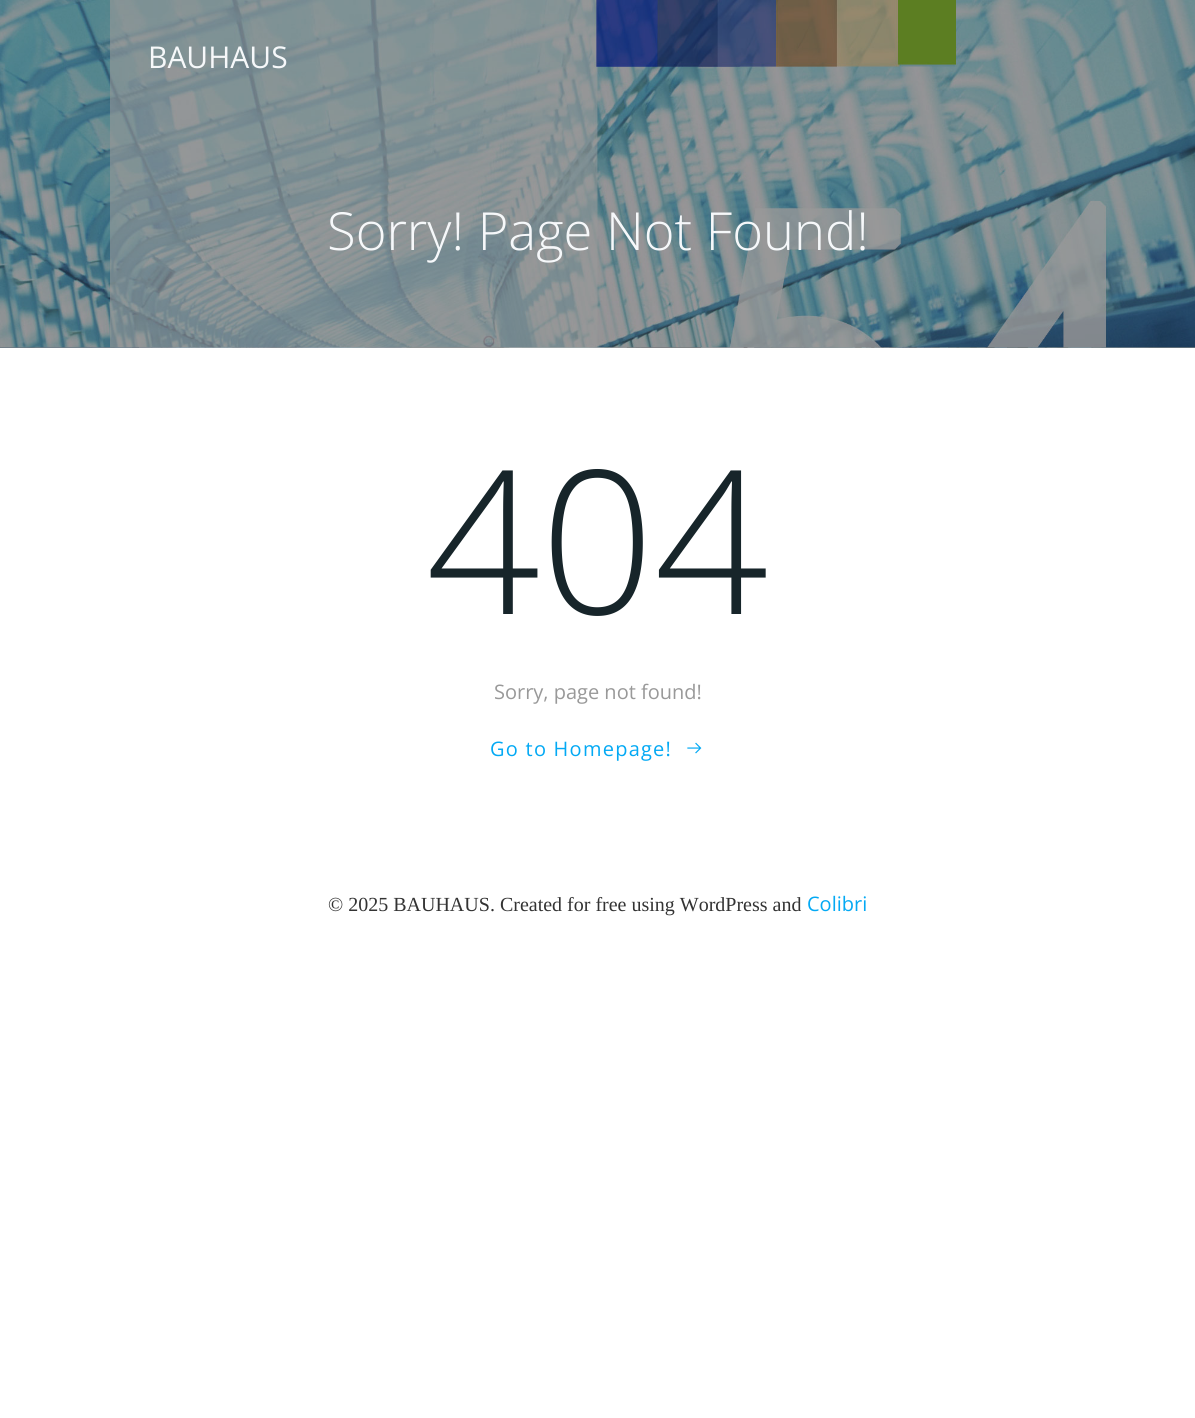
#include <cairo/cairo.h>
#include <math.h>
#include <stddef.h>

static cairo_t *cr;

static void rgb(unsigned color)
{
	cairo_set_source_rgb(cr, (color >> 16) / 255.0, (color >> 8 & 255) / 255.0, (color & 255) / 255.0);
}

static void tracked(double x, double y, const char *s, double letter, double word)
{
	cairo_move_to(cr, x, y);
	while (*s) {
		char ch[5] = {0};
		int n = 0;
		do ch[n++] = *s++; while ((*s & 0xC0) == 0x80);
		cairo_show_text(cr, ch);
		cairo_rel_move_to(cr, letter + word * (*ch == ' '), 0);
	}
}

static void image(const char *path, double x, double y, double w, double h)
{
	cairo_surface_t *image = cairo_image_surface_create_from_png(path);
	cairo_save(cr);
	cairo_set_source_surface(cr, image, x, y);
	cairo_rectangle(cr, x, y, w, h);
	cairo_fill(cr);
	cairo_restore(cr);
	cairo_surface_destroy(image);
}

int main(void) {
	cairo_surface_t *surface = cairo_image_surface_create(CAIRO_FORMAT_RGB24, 1195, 1418);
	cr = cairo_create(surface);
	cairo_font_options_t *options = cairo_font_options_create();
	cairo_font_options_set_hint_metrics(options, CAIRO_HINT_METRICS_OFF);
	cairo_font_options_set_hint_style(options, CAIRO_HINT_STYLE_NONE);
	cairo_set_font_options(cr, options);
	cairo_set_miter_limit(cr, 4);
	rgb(0xffffff);
	cairo_paint(cr);
	image("img/2.png", 0, 347, 1195, 1);
	image("img/3.png", 0, 347, 1195, 1);
	image("img/4.png", 0, 347, 1195, 1);
	image("img/5.png", 0, 347, 1195, 1);
	image("img/1.png", 0, 0, 1195, 348);
	image("img/6.png", 687, 742, 15, 12);
	cairo_select_font_face(cr, "Open Sans", CAIRO_FONT_SLANT_NORMAL, CAIRO_FONT_WEIGHT_NORMAL);
	cairo_set_font_size(cr, 30);
	rgb(0xf6f8fa);
	cairo_move_to(cr, 148, 68);
	cairo_show_text(cr, "BAUHAUS");
	cairo_select_font_face(cr, "Open Sans Light", CAIRO_FONT_SLANT_NORMAL, CAIRO_FONT_WEIGHT_NORMAL);
	cairo_set_font_size(cr, 52.5);
	cairo_move_to(cr, 327, 250);
	cairo_show_text(cr, "Sorry! Page Not Found!");
	cairo_set_font_size(cr, 200);
	rgb(0x17252a);
	cairo_move_to(cr, 426, 614);
	cairo_show_text(cr, "404");
	cairo_select_font_face(cr, "Open Sans", CAIRO_FONT_SLANT_NORMAL, CAIRO_FONT_WEIGHT_NORMAL);
	cairo_set_font_size(cr, 20);
	rgb(0x999999);
	cairo_move_to(cr, 494, 699);
	cairo_show_text(cr, "Sorry, page not found!");
	rgb(0x03a9f4);
	tracked(490, 756, "Go to Homepage!", 1.25, 0);
	cairo_select_font_face(cr, "Liberation Serif", CAIRO_FONT_SLANT_NORMAL, CAIRO_FONT_WEIGHT_NORMAL);
	rgb(0x333333);
	cairo_move_to(cr, 328, 911);
	cairo_show_text(cr, "© 2025 BAUHAUS. Created for free using WordPress and");
	cairo_select_font_face(cr, "Open Sans", CAIRO_FONT_SLANT_NORMAL, CAIRO_FONT_WEIGHT_NORMAL);
	rgb(0x03a9f4);
	cairo_move_to(cr, 807, 911);
	cairo_show_text(cr, "Colibri");
	cairo_surface_write_to_png(surface, "page.png");
	cairo_font_options_destroy(options);
	cairo_destroy(cr);
	cairo_surface_destroy(surface);
	return 0;
}
